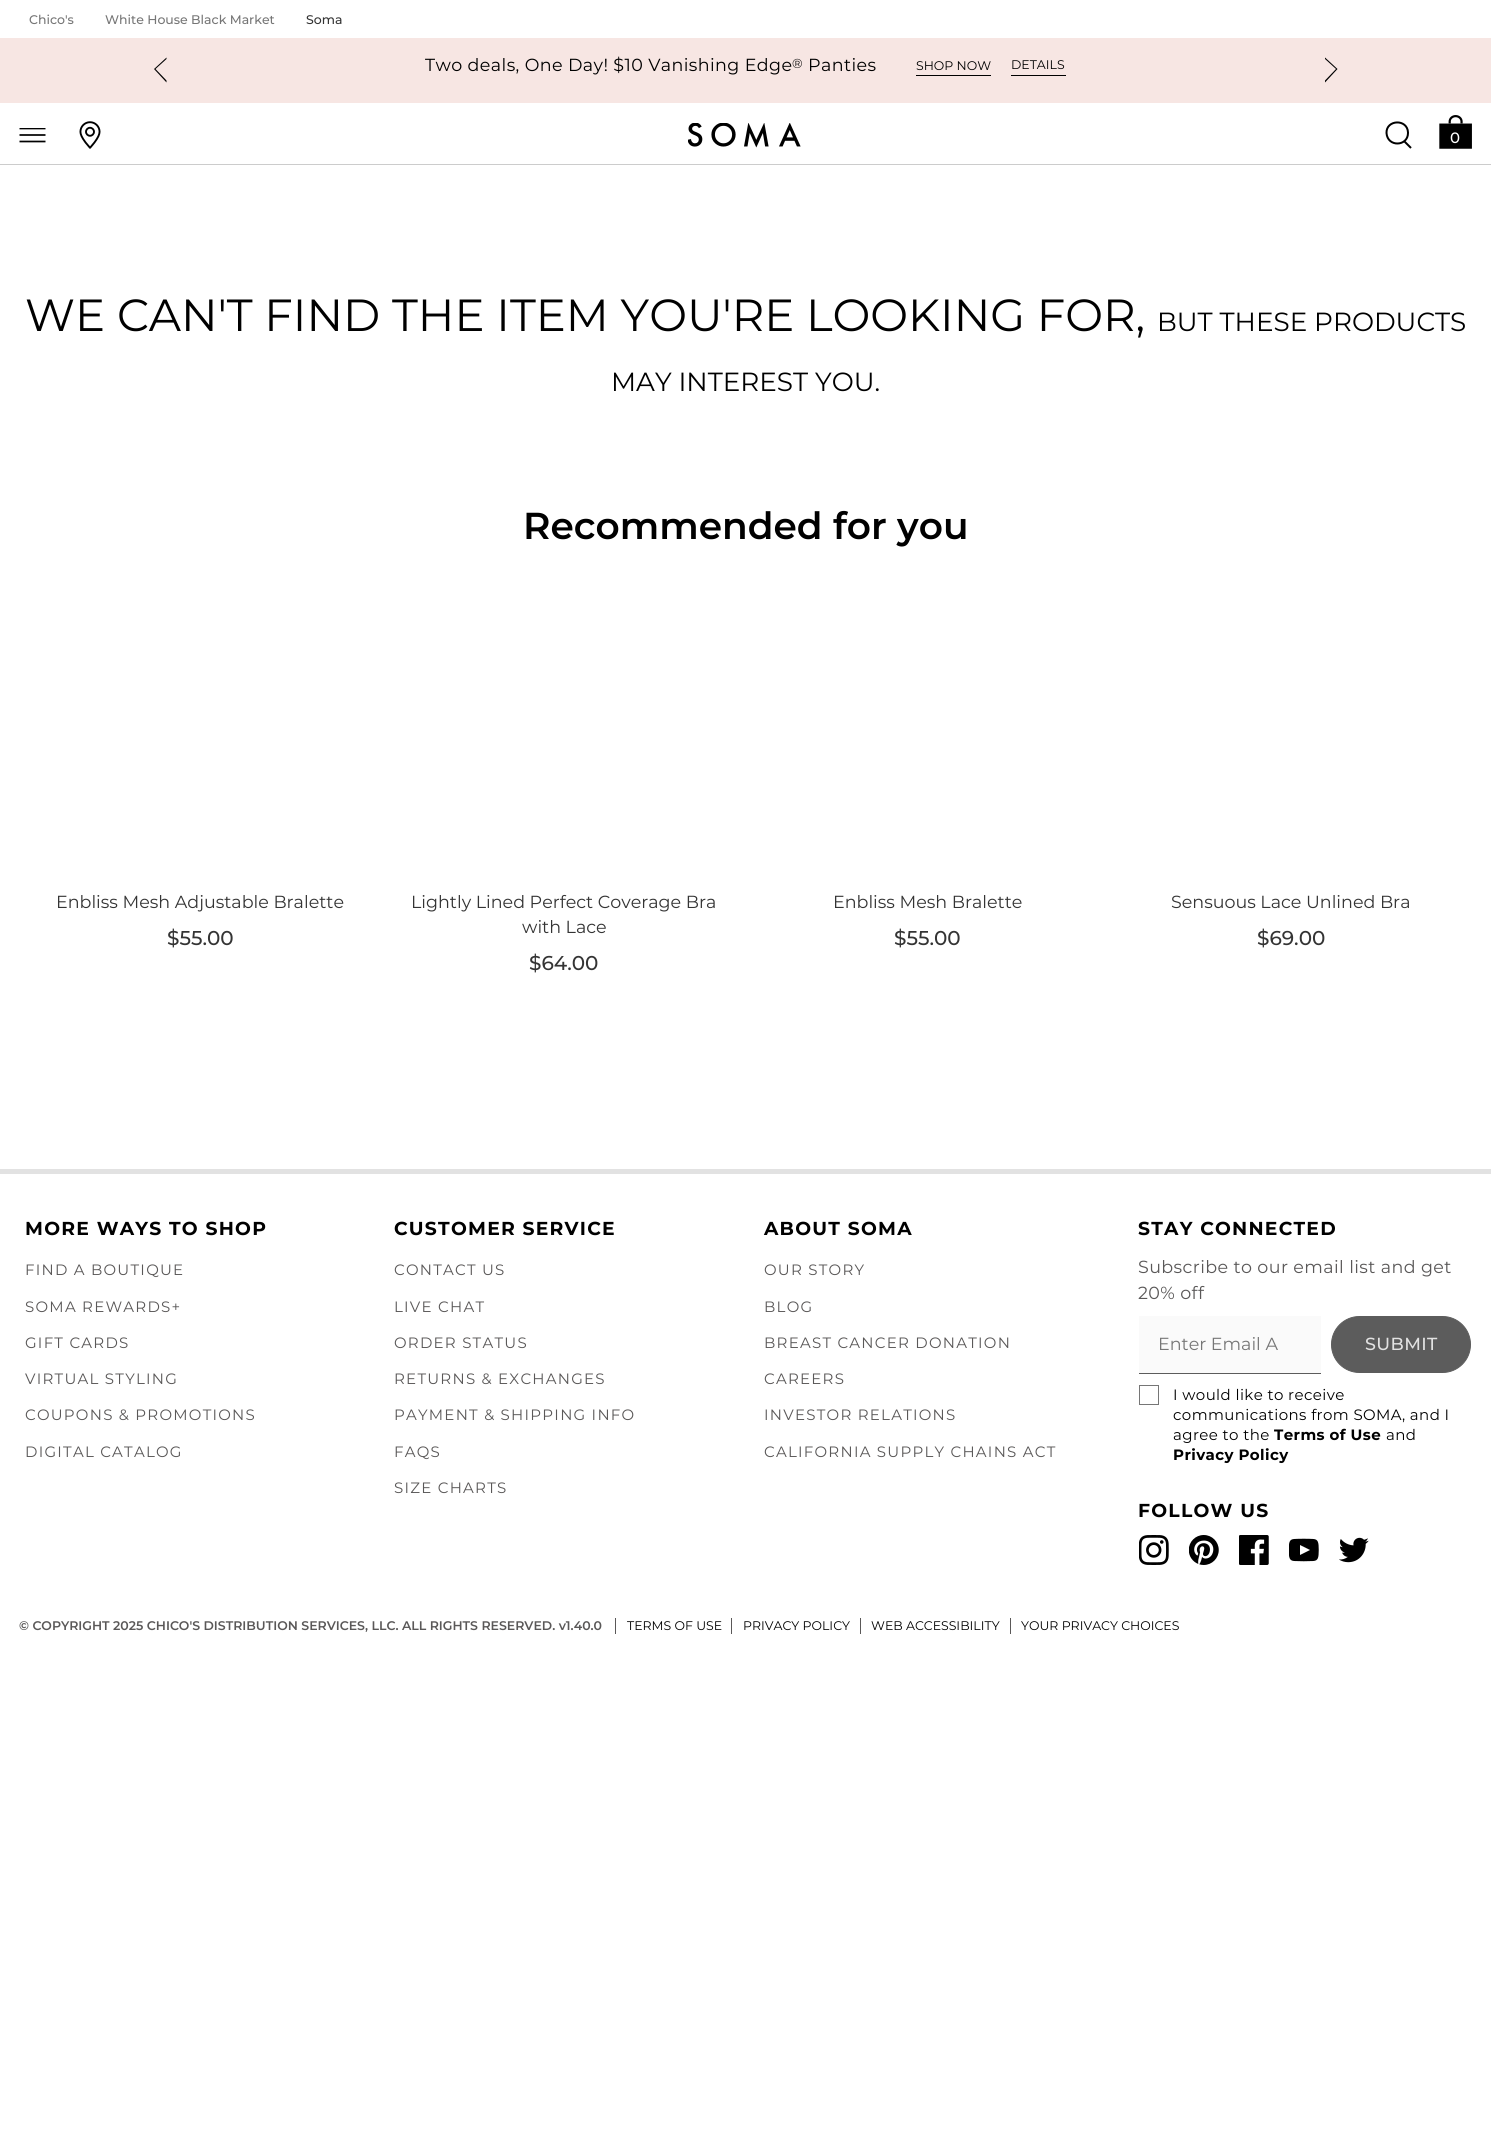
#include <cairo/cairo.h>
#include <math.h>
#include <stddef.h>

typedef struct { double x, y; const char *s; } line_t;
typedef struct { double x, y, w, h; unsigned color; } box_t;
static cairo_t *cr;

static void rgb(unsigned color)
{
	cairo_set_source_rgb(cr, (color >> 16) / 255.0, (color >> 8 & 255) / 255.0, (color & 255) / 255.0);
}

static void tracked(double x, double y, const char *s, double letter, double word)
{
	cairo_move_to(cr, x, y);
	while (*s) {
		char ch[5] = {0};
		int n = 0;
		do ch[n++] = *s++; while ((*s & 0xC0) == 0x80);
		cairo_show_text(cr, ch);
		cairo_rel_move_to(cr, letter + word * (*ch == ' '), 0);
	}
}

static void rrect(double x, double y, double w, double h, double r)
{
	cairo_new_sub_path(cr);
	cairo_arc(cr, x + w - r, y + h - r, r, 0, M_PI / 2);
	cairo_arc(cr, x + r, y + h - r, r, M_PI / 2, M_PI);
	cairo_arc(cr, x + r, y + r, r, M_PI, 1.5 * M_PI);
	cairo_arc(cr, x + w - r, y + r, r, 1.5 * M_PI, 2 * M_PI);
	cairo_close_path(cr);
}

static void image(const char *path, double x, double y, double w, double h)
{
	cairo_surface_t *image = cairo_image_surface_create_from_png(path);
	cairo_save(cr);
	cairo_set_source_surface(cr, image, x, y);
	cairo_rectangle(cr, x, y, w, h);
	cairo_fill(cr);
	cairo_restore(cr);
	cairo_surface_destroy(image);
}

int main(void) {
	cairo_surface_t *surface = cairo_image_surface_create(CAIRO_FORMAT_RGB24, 1491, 2130);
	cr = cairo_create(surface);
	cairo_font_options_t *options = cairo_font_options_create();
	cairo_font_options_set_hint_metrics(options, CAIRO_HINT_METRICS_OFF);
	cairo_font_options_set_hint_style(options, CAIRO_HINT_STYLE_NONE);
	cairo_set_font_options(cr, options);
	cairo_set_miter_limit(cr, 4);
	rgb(0xffffff);
	cairo_paint(cr);
	rgb(0xf7e6e3);
	cairo_rectangle(cr, 0, 38, 1491, 65);
	cairo_fill(cr);
	rgb(0x000000);
	cairo_new_path(cr);
	cairo_move_to(cr, 166.5, 57.5);
	cairo_line_to(cr, 154, 69);
	cairo_line_to(cr, 166.5, 82.5);
	cairo_line_to(cr, 166.5, 80.5);
	cairo_line_to(cr, 155.5, 69);
	cairo_line_to(cr, 166.5, 59);
	cairo_close_path(cr);
	cairo_fill(cr);
	cairo_rectangle(cr, 916, 75, 75, 1);
	cairo_fill(cr);
	cairo_rectangle(cr, 1011, 75, 55, 1);
	cairo_fill(cr);
	cairo_new_path(cr);
	cairo_move_to(cr, 1325, 57.5);
	cairo_line_to(cr, 1337.5, 69);
	cairo_line_to(cr, 1325, 82.5);
	cairo_line_to(cr, 1325, 80.5);
	cairo_line_to(cr, 1336, 69);
	cairo_line_to(cr, 1325, 59);
	cairo_close_path(cr);
	cairo_fill(cr);
	rgb(0xcccccc);
	cairo_rectangle(cr, 0, 164, 1491, 1);
	cairo_fill(cr);
	cairo_save(cr);
	cairo_rectangle(cr, 18, 128, 30, 15);
	cairo_clip(cr);
	cairo_new_path(cr);
	cairo_move_to(cr, 19.5, 128.5);
	cairo_line_to(cr, 45.5, 128.5);
	cairo_move_to(cr, 19.5, 135);
	cairo_line_to(cr, 45.5, 135);
	cairo_move_to(cr, 19.5, 141.5);
	cairo_line_to(cr, 45.5, 141.5);
	rgb(0x000000);
	cairo_set_line_width(cr, 1.7);
	cairo_stroke(cr);
	cairo_restore(cr);
	image("img/1.png", 79, 121, 22, 28);
	image("img/2.png", 688, 123, 113, 25);
	cairo_new_path(cr);
	cairo_move_to(cr, 1408, 133);
	cairo_curve_to(cr, 1408, 146.5, 1387.5, 147.5, 1386.5, 133);
	cairo_curve_to(cr, 1386, 119.5, 1407.5, 118.5, 1408, 132.5);
	cairo_close_path(cr);
	cairo_move_to(cr, 1411, 148);
	cairo_line_to(cr, 1404, 141);
	rgb(0x000000);
	cairo_stroke(cr);
	image("img/3.png", 1439, 115, 33, 34);
	{
		static const box_t items[] = {
			{0, 1169, 1491, 5, 0xe2e2e2},
			{1139, 1316, 182, 57, 0xfafafa},
			{1139, 1373, 182, 1, 0x5c5c5c},
		};
		for (size_t i = 0; i < sizeof items / sizeof *items; i++) {
			rgb(items[i].color);
			cairo_rectangle(cr, items[i].x, items[i].y, items[i].w, items[i].h);
			cairo_fill(cr);
		}
	}
	rrect(1331.5, 1316.5, 139, 56, 28);
	cairo_fill_preserve(cr);
	cairo_set_line_width(cr, 1);
	cairo_stroke(cr);
	cairo_rectangle(cr, 1139.5, 1385.5, 19, 19);
	rgb(0x767676);
	cairo_stroke(cr);
	image("img/4.png", 1139, 1535, 30, 30);
	image("img/5.png", 1189, 1535, 30, 30);
	image("img/6.png", 1239, 1535, 30, 30);
	image("img/7.png", 1289, 1538, 30, 24);
	image("img/8.png", 1339, 1537, 30, 26);
	{
		static const box_t items[] = {
			{731, 1618, 1, 16, 0x5a5858},
			{615, 1618, 1, 16, 0x5a5858},
			{860, 1618, 1, 16, 0x5a5858},
			{1010, 1618, 1, 16, 0x5a5858},
		};
		for (size_t i = 0; i < sizeof items / sizeof *items; i++) {
			rgb(items[i].color);
			cairo_rectangle(cr, items[i].x, items[i].y, items[i].w, items[i].h);
			cairo_fill(cr);
		}
	}
	cairo_select_font_face(cr, "Montserrat Medium", CAIRO_FONT_SLANT_NORMAL, CAIRO_FONT_WEIGHT_NORMAL);
	cairo_set_font_size(cr, 12.5);
	rgb(0x767676);
	cairo_move_to(cr, 29, 24);
	cairo_show_text(cr, "Chico's");
	cairo_move_to(cr, 105, 24);
	cairo_show_text(cr, "White House Black Market");
	rgb(0x343434);
	cairo_move_to(cr, 306, 24);
	cairo_show_text(cr, "Soma");
	cairo_select_font_face(cr, "Montserrat", CAIRO_FONT_SLANT_NORMAL, CAIRO_FONT_WEIGHT_NORMAL);
	cairo_set_font_size(cr, 17.5);
	rgb(0x000000);
	tracked(425, 71, "Two deals, One Day! $10 Vanishing Edge", 0.4, 0);
	cairo_set_font_size(cr, 13);
	tracked(792, 68, "®", 0.4, 0);
	cairo_set_font_size(cr, 17.5);
	tracked(808, 71, "Panties", 0.4, 0);
	cairo_set_font_size(cr, 12.5);
	cairo_move_to(cr, 916, 70);
	cairo_show_text(cr, "SHOP NOW");
	cairo_move_to(cr, 1011, 69);
	cairo_show_text(cr, "DETAILS");
	cairo_select_font_face(cr, "Montserrat Medium", CAIRO_FONT_SLANT_NORMAL, CAIRO_FONT_WEIGHT_NORMAL);
	cairo_set_font_size(cr, 15);
	rgb(0xffffff);
	cairo_move_to(cr, 1450, 143);
	cairo_show_text(cr, "0");
	cairo_select_font_face(cr, "Montserrat", CAIRO_FONT_SLANT_NORMAL, CAIRO_FONT_WEIGHT_NORMAL);
	cairo_set_font_size(cr, 45);
	rgb(0x000000);
	cairo_move_to(cr, 25, 331);
	cairo_show_text(cr, "WE CAN'T FIND THE ITEM YOU'RE LOOKING FOR,");
	cairo_set_font_size(cr, 26.25);
	cairo_move_to(cr, 1157, 331);
	cairo_show_text(cr, "BUT THESE PRODUCTS");
	cairo_move_to(cr, 611, 391);
	cairo_show_text(cr, "MAY INTEREST YOU.");
	cairo_select_font_face(cr, "Montserrat SemiBold", CAIRO_FONT_SLANT_NORMAL, CAIRO_FONT_WEIGHT_NORMAL);
	cairo_set_font_size(cr, 37.5);
	cairo_move_to(cr, 523, 539);
	cairo_show_text(cr, "Recommended for you");
	cairo_select_font_face(cr, "Montserrat", CAIRO_FONT_SLANT_NORMAL, CAIRO_FONT_WEIGHT_NORMAL);
	cairo_set_font_size(cr, 17.5);
	rgb(0x343434);
	cairo_move_to(cr, 56, 908);
	cairo_show_text(cr, "Enbliss Mesh Adjustable Bralette");
	cairo_select_font_face(cr, "Montserrat Medium", CAIRO_FONT_SLANT_NORMAL, CAIRO_FONT_WEIGHT_NORMAL);
	cairo_set_font_size(cr, 20);
	cairo_move_to(cr, 167, 945);
	cairo_show_text(cr, "$55.00");
	cairo_select_font_face(cr, "Montserrat", CAIRO_FONT_SLANT_NORMAL, CAIRO_FONT_WEIGHT_NORMAL);
	cairo_set_font_size(cr, 17.5);
	cairo_move_to(cr, 411, 908);
	cairo_show_text(cr, "Lightly Lined Perfect Coverage Bra");
	cairo_move_to(cr, 522, 933);
	cairo_show_text(cr, "with Lace");
	cairo_select_font_face(cr, "Montserrat Medium", CAIRO_FONT_SLANT_NORMAL, CAIRO_FONT_WEIGHT_NORMAL);
	cairo_set_font_size(cr, 20);
	cairo_move_to(cr, 529, 970);
	cairo_show_text(cr, "$64.00");
	cairo_select_font_face(cr, "Montserrat", CAIRO_FONT_SLANT_NORMAL, CAIRO_FONT_WEIGHT_NORMAL);
	cairo_set_font_size(cr, 17.5);
	cairo_move_to(cr, 833, 908);
	cairo_show_text(cr, "Enbliss Mesh Bralette");
	cairo_select_font_face(cr, "Montserrat Medium", CAIRO_FONT_SLANT_NORMAL, CAIRO_FONT_WEIGHT_NORMAL);
	cairo_set_font_size(cr, 20);
	cairo_move_to(cr, 894, 945);
	cairo_show_text(cr, "$55.00");
	cairo_select_font_face(cr, "Montserrat", CAIRO_FONT_SLANT_NORMAL, CAIRO_FONT_WEIGHT_NORMAL);
	cairo_set_font_size(cr, 17.5);
	cairo_move_to(cr, 1171, 908);
	cairo_show_text(cr, "Sensuous Lace Unlined Bra");
	cairo_select_font_face(cr, "Montserrat Medium", CAIRO_FONT_SLANT_NORMAL, CAIRO_FONT_WEIGHT_NORMAL);
	cairo_set_font_size(cr, 20);
	cairo_move_to(cr, 1257, 945);
	cairo_show_text(cr, "$69.00");
	cairo_select_font_face(cr, "Montserrat", CAIRO_FONT_SLANT_NORMAL, CAIRO_FONT_WEIGHT_BOLD);
	cairo_set_font_size(cr, 18.75);
	rgb(0x000000);
	tracked(25, 1235, "MORE WAYS TO SHOP", 1.25, 0);
	cairo_select_font_face(cr, "Montserrat", CAIRO_FONT_SLANT_NORMAL, CAIRO_FONT_WEIGHT_NORMAL);
	cairo_set_font_size(cr, 15);
	rgb(0x5a5858);
	{
		static const line_t items[] = {
			{25, 1275, "FIND A BOUTIQUE"},
			{25, 1312, "SOMA REWARDS+"},
			{25, 1348, "GIFT CARDS"},
			{25, 1384, "VIRTUAL STYLING"},
			{25, 1420, "COUPONS & PROMOTIONS"},
			{25, 1457, "DIGITAL CATALOG"},
		};
		for (size_t i = 0; i < sizeof items / sizeof *items; i++) {
			tracked(items[i].x, items[i].y, items[i].s, 1.25, 0);
		}
	}
	cairo_select_font_face(cr, "Montserrat", CAIRO_FONT_SLANT_NORMAL, CAIRO_FONT_WEIGHT_BOLD);
	cairo_set_font_size(cr, 18.75);
	rgb(0x000000);
	tracked(394, 1235, "CUSTOMER SERVICE", 1.25, 0);
	cairo_select_font_face(cr, "Montserrat", CAIRO_FONT_SLANT_NORMAL, CAIRO_FONT_WEIGHT_NORMAL);
	cairo_set_font_size(cr, 15);
	rgb(0x5a5858);
	{
		static const line_t items[] = {
			{394, 1275, "CONTACT US"},
			{394, 1312, "LIVE CHAT"},
			{394, 1348, "ORDER STATUS"},
			{394, 1384, "RETURNS & EXCHANGES"},
			{394, 1420, "PAYMENT & SHIPPING INFO"},
			{394, 1457, "FAQS"},
			{394, 1493, "SIZE CHARTS"},
		};
		for (size_t i = 0; i < sizeof items / sizeof *items; i++) {
			tracked(items[i].x, items[i].y, items[i].s, 1.25, 0);
		}
	}
	cairo_select_font_face(cr, "Montserrat", CAIRO_FONT_SLANT_NORMAL, CAIRO_FONT_WEIGHT_BOLD);
	cairo_set_font_size(cr, 18.75);
	rgb(0x000000);
	tracked(764, 1235, "ABOUT SOMA", 1.25, 0);
	cairo_select_font_face(cr, "Montserrat", CAIRO_FONT_SLANT_NORMAL, CAIRO_FONT_WEIGHT_NORMAL);
	cairo_set_font_size(cr, 15);
	rgb(0x5a5858);
	{
		static const line_t items[] = {
			{764, 1275, "OUR STORY"},
			{764, 1312, "BLOG"},
			{764, 1348, "BREAST CANCER DONATION"},
			{764, 1384, "CAREERS"},
			{764, 1420, "INVESTOR RELATIONS"},
			{764, 1457, "CALIFORNIA SUPPLY CHAINS ACT"},
		};
		for (size_t i = 0; i < sizeof items / sizeof *items; i++) {
			tracked(items[i].x, items[i].y, items[i].s, 1.25, 0);
		}
	}
	cairo_select_font_face(cr, "Montserrat", CAIRO_FONT_SLANT_NORMAL, CAIRO_FONT_WEIGHT_BOLD);
	cairo_set_font_size(cr, 18.75);
	rgb(0x000000);
	tracked(1138, 1235, "STAY CONNECTED", 1.25, 0);
	cairo_select_font_face(cr, "Montserrat", CAIRO_FONT_SLANT_NORMAL, CAIRO_FONT_WEIGHT_NORMAL);
	cairo_set_font_size(cr, 17.5);
	rgb(0x5a5858);
	tracked(1138, 1273, "Subscribe to our email list and get", 0.4, 0);
	tracked(1138, 1299, "20% off", 0.4, 0);
	rgb(0x767676);
	cairo_move_to(cr, 1158, 1350);
	cairo_show_text(cr, "Enter Email A");
	cairo_select_font_face(cr, "Montserrat Medium", CAIRO_FONT_SLANT_NORMAL, CAIRO_FONT_WEIGHT_NORMAL);
	rgb(0xe2e2e2);
	tracked(1365, 1350, "SUBMIT", 0.4, 0);
	cairo_select_font_face(cr, "Montserrat", CAIRO_FONT_SLANT_NORMAL, CAIRO_FONT_WEIGHT_NORMAL);
	cairo_set_font_size(cr, 15);
	rgb(0x000000);
	{
		static const line_t items[] = {
			{1173, 1400, "I would like to receive"},
			{1173, 1420, "communications from SOMA, and I"},
			{1173, 1440, "agree to the"},
		};
		for (size_t i = 0; i < sizeof items / sizeof *items; i++) {
			tracked(items[i].x, items[i].y, items[i].s, 0.4, 0);
		}
	}
	cairo_select_font_face(cr, "Montserrat", CAIRO_FONT_SLANT_NORMAL, CAIRO_FONT_WEIGHT_BOLD);
	tracked(1274, 1440, "Terms of Use", 0.4, 0);
	cairo_select_font_face(cr, "Montserrat", CAIRO_FONT_SLANT_NORMAL, CAIRO_FONT_WEIGHT_NORMAL);
	tracked(1386, 1440, "and", 0.4, 0);
	cairo_select_font_face(cr, "Montserrat", CAIRO_FONT_SLANT_NORMAL, CAIRO_FONT_WEIGHT_BOLD);
	tracked(1173, 1460, "Privacy Policy", 0.4, 0);
	cairo_set_font_size(cr, 18.75);
	tracked(1138, 1517, "FOLLOW US", 1.25, 0);
	cairo_select_font_face(cr, "Montserrat SemiBold", CAIRO_FONT_SLANT_NORMAL, CAIRO_FONT_WEIGHT_NORMAL);
	cairo_set_font_size(cr, 12.5);
	rgb(0x5a5858);
	cairo_move_to(cr, 19, 1630);
	cairo_show_text(cr, "© COPYRIGHT 2025 CHICO'S DISTRIBUTION SERVICES, LLC. ALL RIGHTS RESERVED. v1.40.0");
	cairo_select_font_face(cr, "Montserrat", CAIRO_FONT_SLANT_NORMAL, CAIRO_FONT_WEIGHT_NORMAL);
	rgb(0x000000);
	{
		static const line_t items[] = {
			{627, 1630, "TERMS OF USE"},
			{743, 1630, "PRIVACY POLICY"},
			{871, 1630, "WEB ACCESSIBILITY"},
			{1021, 1630, "YOUR PRIVACY CHOICES"},
		};
		for (size_t i = 0; i < sizeof items / sizeof *items; i++) {
			cairo_move_to(cr, items[i].x, items[i].y);
			cairo_show_text(cr, items[i].s);
		}
	}
	cairo_surface_write_to_png(surface, "page.png");
	cairo_font_options_destroy(options);
	cairo_destroy(cr);
	cairo_surface_destroy(surface);
	return 0;
}
